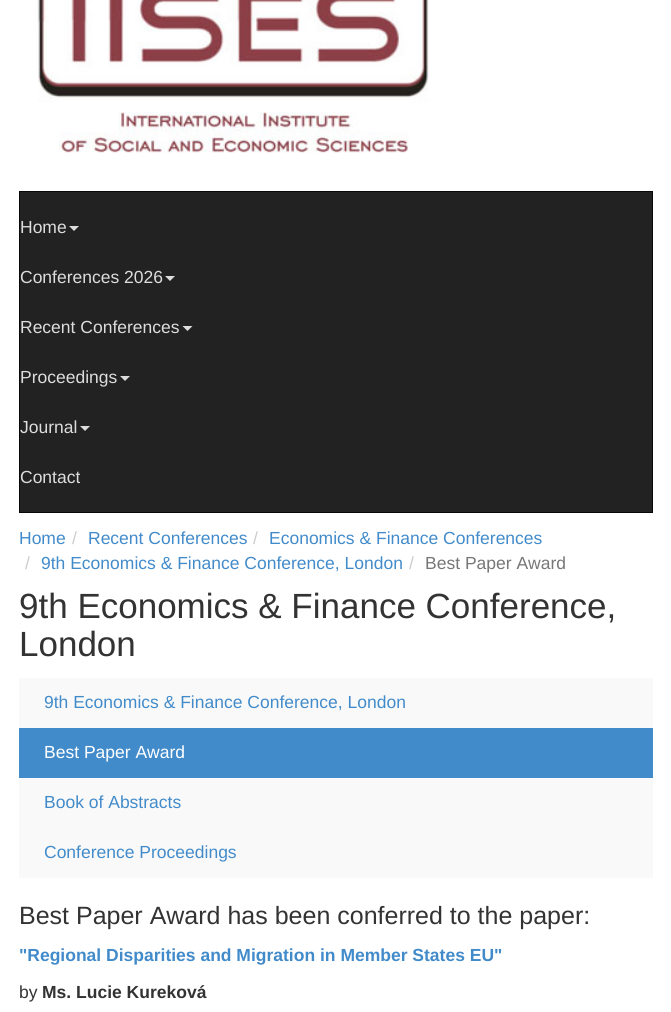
#include <cairo/cairo.h>
#include <math.h>
#include <stddef.h>

typedef struct { double x, y; const char *s; } line_t;
static cairo_t *cr;

static void rgb(unsigned color)
{
	cairo_set_source_rgb(cr, (color >> 16) / 255.0, (color >> 8 & 255) / 255.0, (color & 255) / 255.0);
}

static void image(const char *path, double x, double y, double w, double h)
{
	cairo_surface_t *image = cairo_image_surface_create_from_png(path);
	cairo_save(cr);
	cairo_set_source_surface(cr, image, x, y);
	cairo_rectangle(cr, x, y, w, h);
	cairo_fill(cr);
	cairo_restore(cr);
	cairo_surface_destroy(image);
}

int main(void) {
	cairo_surface_t *surface = cairo_image_surface_create(CAIRO_FORMAT_RGB24, 671, 1012);
	cr = cairo_create(surface);
	cairo_font_options_t *options = cairo_font_options_create();
	cairo_font_options_set_hint_metrics(options, CAIRO_HINT_METRICS_OFF);
	cairo_font_options_set_hint_style(options, CAIRO_HINT_STYLE_NONE);
	cairo_set_font_options(cr, options);
	cairo_set_miter_limit(cr, 4);
	rgb(0xffffff);
	cairo_paint(cr);
	image("img/1.png", 37, 0, 392, 153);
	rgb(0x222222);
	cairo_rectangle(cr, 19.5, 191.5, 633, 321);
	cairo_fill_preserve(cr);
	rgb(0x080808);
	cairo_set_line_width(cr, 1);
	cairo_stroke(cr);
	rgb(0xdddddd);
	cairo_new_path(cr);
	cairo_move_to(cr, 69, 226);
	cairo_line_to(cr, 79, 226);
	cairo_line_to(cr, 74, 231);
	cairo_close_path(cr);
	cairo_fill(cr);
	cairo_new_path(cr);
	cairo_move_to(cr, 165, 276);
	cairo_line_to(cr, 175, 276);
	cairo_line_to(cr, 170, 281);
	cairo_close_path(cr);
	cairo_fill(cr);
	cairo_new_path(cr);
	cairo_move_to(cr, 182.5, 326);
	cairo_line_to(cr, 192.5, 326);
	cairo_line_to(cr, 187.5, 331);
	cairo_close_path(cr);
	cairo_fill(cr);
	cairo_new_path(cr);
	cairo_move_to(cr, 120, 376);
	cairo_line_to(cr, 130, 376);
	cairo_line_to(cr, 125, 381);
	cairo_close_path(cr);
	cairo_fill(cr);
	cairo_new_path(cr);
	cairo_move_to(cr, 80, 426);
	cairo_line_to(cr, 90, 426);
	cairo_line_to(cr, 85, 431);
	cairo_close_path(cr);
	cairo_fill(cr);
	rgb(0xf9f9f9);
	cairo_rectangle(cr, 19, 678, 634, 200);
	cairo_fill(cr);
	rgb(0x428bca);
	cairo_rectangle(cr, 19, 728, 634, 50);
	cairo_fill(cr);
	cairo_select_font_face(cr, "Liberation Sans", CAIRO_FONT_SLANT_NORMAL, CAIRO_FONT_WEIGHT_NORMAL);
	cairo_set_font_size(cr, 17.5);
	rgb(0xdddddd);
	{
		static const line_t items[] = {
			{20, 233, "Home"},
			{20, 283, "Conferences 2026"},
			{20, 333, "Recent Conferences"},
			{20, 383, "Proceedings"},
			{20, 433, "Journal"},
			{20, 483, "Contact"},
		};
		for (size_t i = 0; i < sizeof items / sizeof *items; i++) {
			cairo_move_to(cr, items[i].x, items[i].y);
			cairo_show_text(cr, items[i].s);
		}
	}
	rgb(0x428bca);
	cairo_move_to(cr, 19, 544);
	cairo_show_text(cr, "Home");
	rgb(0xcccccc);
	cairo_move_to(cr, 72, 544);
	cairo_show_text(cr, "/");
	rgb(0x428bca);
	cairo_move_to(cr, 88, 544);
	cairo_show_text(cr, "Recent Conferences");
	rgb(0xcccccc);
	cairo_move_to(cr, 253, 544);
	cairo_show_text(cr, "/");
	rgb(0x428bca);
	cairo_move_to(cr, 269, 544);
	cairo_show_text(cr, "Economics & Finance Conferences");
	rgb(0xcccccc);
	cairo_move_to(cr, 25, 569);
	cairo_show_text(cr, "/");
	rgb(0x428bca);
	cairo_move_to(cr, 41, 569);
	cairo_show_text(cr, "9th Economics & Finance Conference, London");
	rgb(0xcccccc);
	cairo_move_to(cr, 409, 569);
	cairo_show_text(cr, "/");
	rgb(0x777777);
	cairo_move_to(cr, 425, 569);
	cairo_show_text(cr, "Best Paper Award");
	cairo_set_font_size(cr, 35);
	rgb(0x333333);
	cairo_move_to(cr, 19, 618);
	cairo_show_text(cr, "9th Economics & Finance Conference,");
	cairo_move_to(cr, 19, 656);
	cairo_show_text(cr, "London");
	cairo_set_font_size(cr, 17.5);
	rgb(0x428bca);
	cairo_move_to(cr, 44, 708);
	cairo_show_text(cr, "9th Economics & Finance Conference, London");
	rgb(0xffffff);
	cairo_move_to(cr, 44, 758);
	cairo_show_text(cr, "Best Paper Award");
	rgb(0x428bca);
	cairo_move_to(cr, 44, 808);
	cairo_show_text(cr, "Book of Abstracts");
	cairo_move_to(cr, 44, 858);
	cairo_show_text(cr, "Conference Proceedings");
	cairo_set_font_size(cr, 25);
	rgb(0x333333);
	cairo_move_to(cr, 19, 924);
	cairo_show_text(cr, "Best Paper Award has been conferred to the paper:");
	cairo_select_font_face(cr, "Liberation Sans", CAIRO_FONT_SLANT_NORMAL, CAIRO_FONT_WEIGHT_BOLD);
	cairo_set_font_size(cr, 17.5);
	rgb(0x428bca);
	cairo_move_to(cr, 19, 961);
	cairo_show_text(cr, "\"Regional Disparities and Migration in Member States EU\"");
	cairo_select_font_face(cr, "Liberation Sans", CAIRO_FONT_SLANT_NORMAL, CAIRO_FONT_WEIGHT_NORMAL);
	rgb(0x333333);
	cairo_move_to(cr, 19, 998);
	cairo_show_text(cr, "by");
	cairo_select_font_face(cr, "Liberation Sans", CAIRO_FONT_SLANT_NORMAL, CAIRO_FONT_WEIGHT_BOLD);
	cairo_move_to(cr, 42, 998);
	cairo_show_text(cr, "Ms. Lucie Kureková");
	cairo_surface_write_to_png(surface, "page.png");
	cairo_font_options_destroy(options);
	cairo_destroy(cr);
	cairo_surface_destroy(surface);
	return 0;
}
